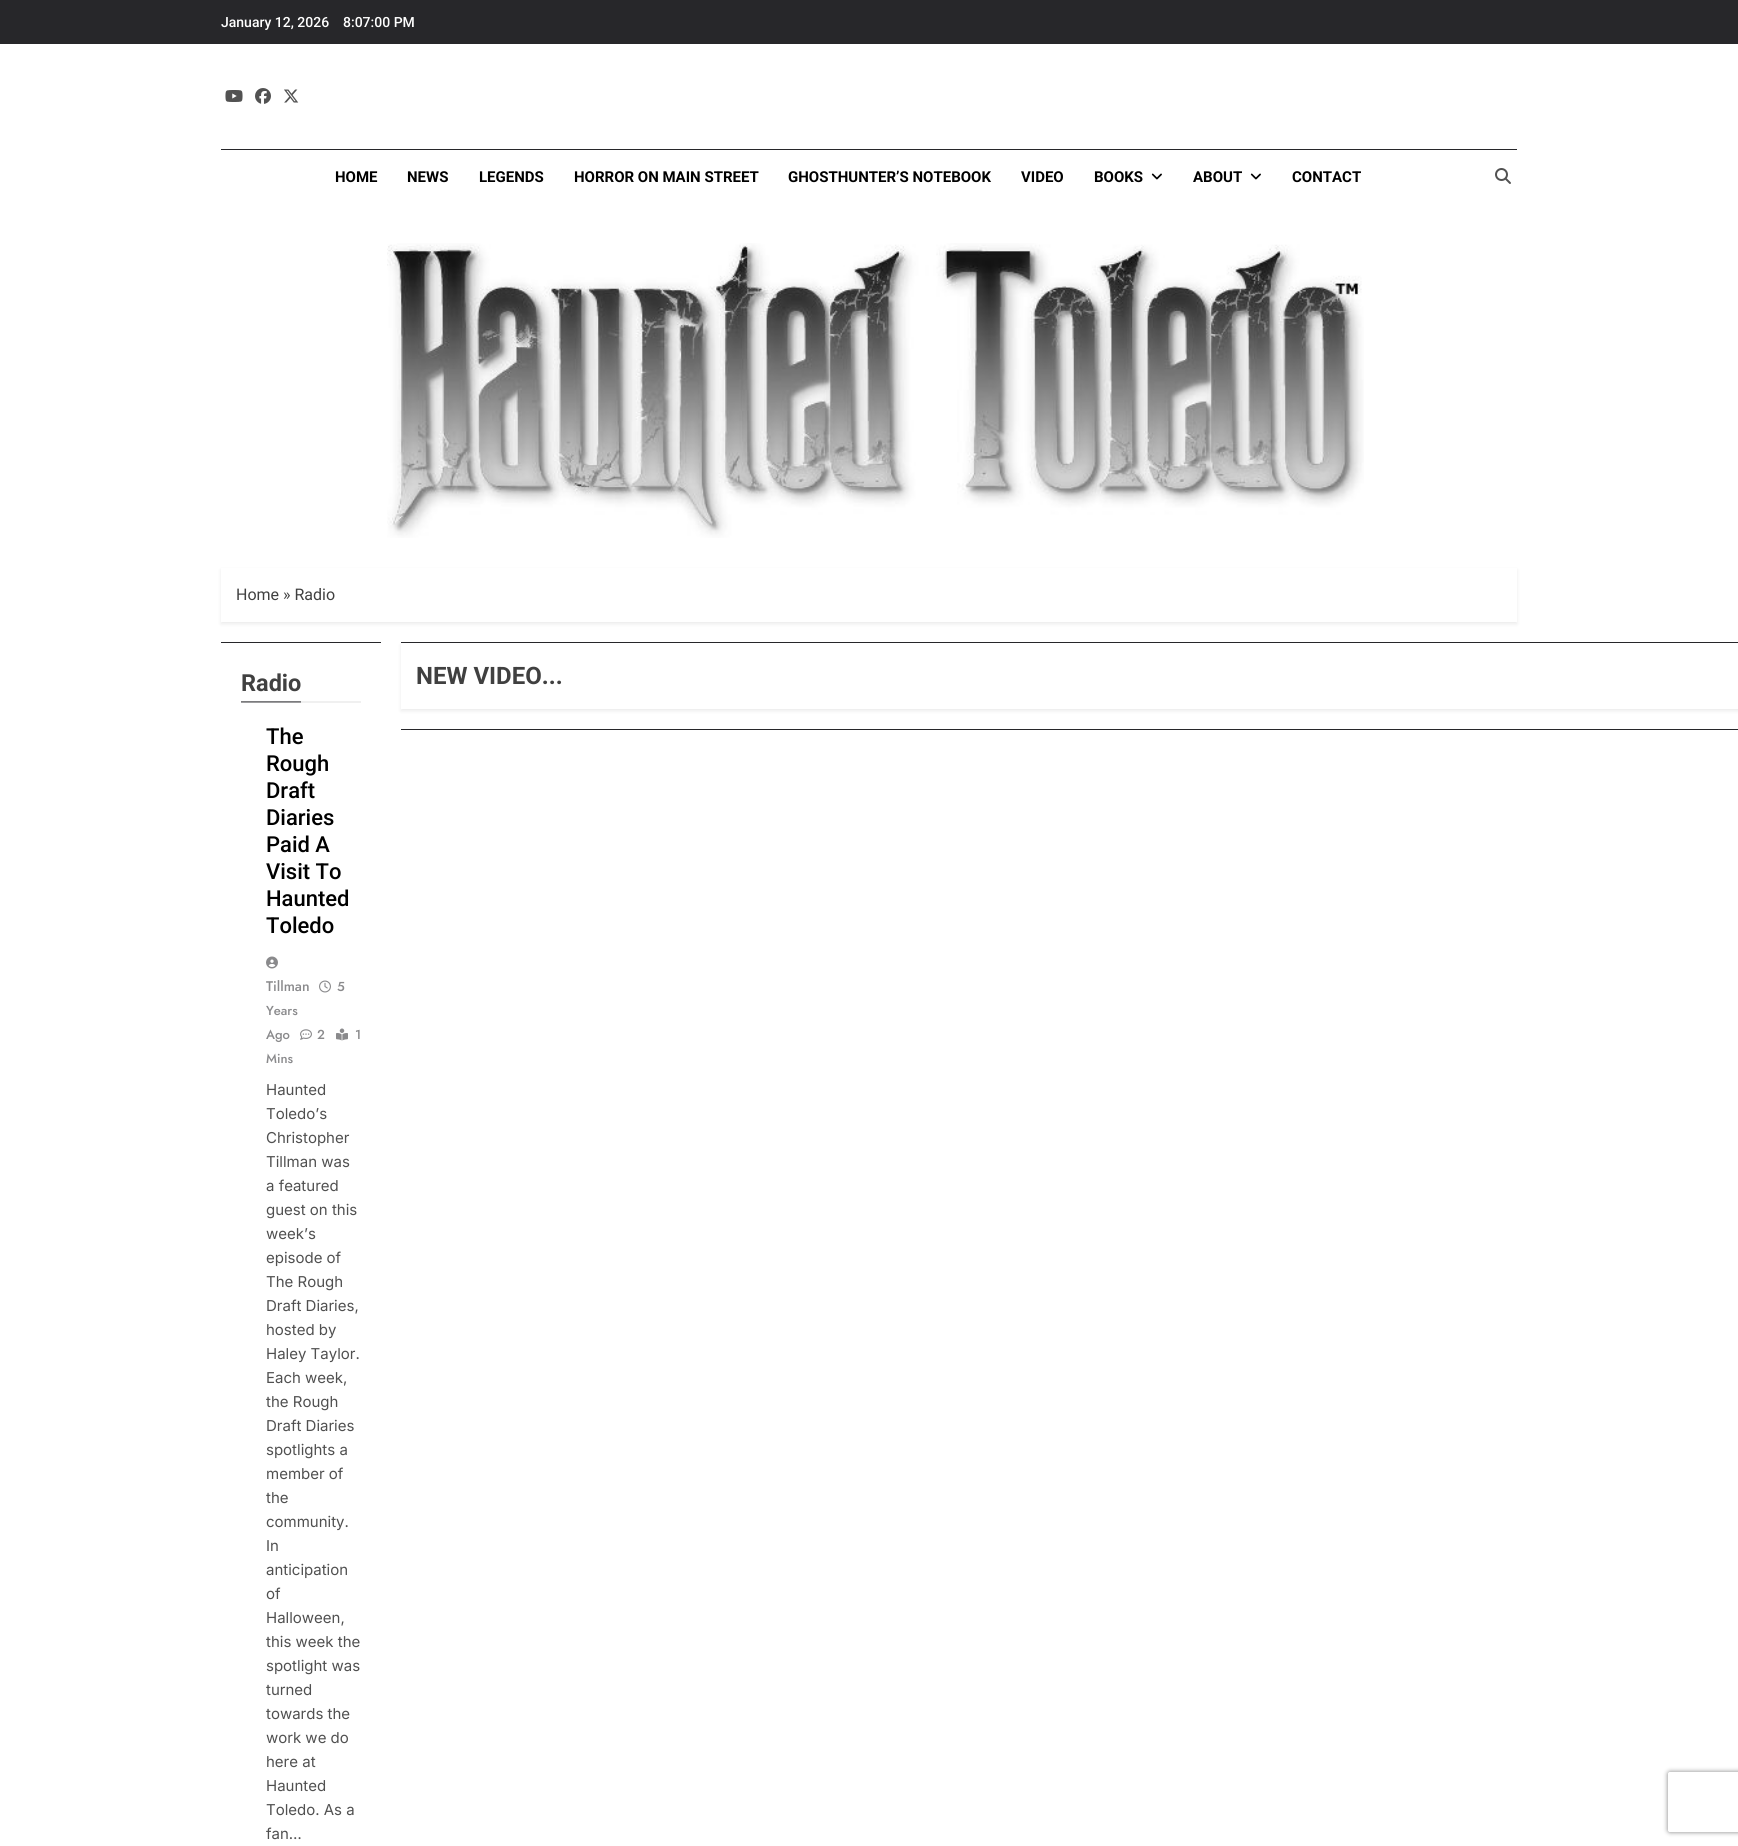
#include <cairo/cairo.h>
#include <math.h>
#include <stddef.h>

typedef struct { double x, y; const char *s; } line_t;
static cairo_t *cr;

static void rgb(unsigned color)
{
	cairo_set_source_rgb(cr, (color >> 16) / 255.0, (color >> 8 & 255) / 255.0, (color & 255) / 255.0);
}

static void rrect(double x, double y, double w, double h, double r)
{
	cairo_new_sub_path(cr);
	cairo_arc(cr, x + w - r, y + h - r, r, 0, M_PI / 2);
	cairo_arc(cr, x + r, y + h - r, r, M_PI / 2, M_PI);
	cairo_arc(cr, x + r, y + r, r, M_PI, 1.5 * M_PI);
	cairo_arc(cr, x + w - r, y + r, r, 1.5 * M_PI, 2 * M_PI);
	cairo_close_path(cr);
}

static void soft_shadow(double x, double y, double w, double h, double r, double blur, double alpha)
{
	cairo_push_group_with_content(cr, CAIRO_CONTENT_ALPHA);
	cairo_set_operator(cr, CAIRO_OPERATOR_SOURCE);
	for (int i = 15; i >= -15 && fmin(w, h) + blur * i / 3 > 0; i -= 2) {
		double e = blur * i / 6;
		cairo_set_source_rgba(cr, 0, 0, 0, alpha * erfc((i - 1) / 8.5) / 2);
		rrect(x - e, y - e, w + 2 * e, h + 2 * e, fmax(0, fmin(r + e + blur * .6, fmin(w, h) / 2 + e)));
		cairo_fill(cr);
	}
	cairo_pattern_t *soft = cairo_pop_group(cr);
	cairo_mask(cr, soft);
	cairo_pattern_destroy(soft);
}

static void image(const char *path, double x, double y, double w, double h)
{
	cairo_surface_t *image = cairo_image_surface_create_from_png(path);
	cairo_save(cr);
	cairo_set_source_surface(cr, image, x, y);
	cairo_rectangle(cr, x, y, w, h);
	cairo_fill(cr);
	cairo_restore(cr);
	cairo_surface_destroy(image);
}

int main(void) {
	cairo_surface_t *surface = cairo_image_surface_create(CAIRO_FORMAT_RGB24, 1738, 1846);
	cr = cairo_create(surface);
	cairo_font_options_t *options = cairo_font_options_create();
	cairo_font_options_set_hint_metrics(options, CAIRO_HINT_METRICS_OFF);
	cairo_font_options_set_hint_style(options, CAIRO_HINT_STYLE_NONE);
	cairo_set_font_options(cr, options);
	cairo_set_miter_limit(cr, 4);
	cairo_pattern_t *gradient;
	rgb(0xffffff);
	cairo_paint(cr);
	rgb(0x27272a);
	cairo_rectangle(cr, 0, 0, 1738, 44);
	cairo_fill(cr);
	image("img/1.png", 225, 90, 18, 12);
	image("img/2.png", 255, 88, 16, 16);
	image("img/3.png", 284, 89, 15, 14);
	cairo_rectangle(cr, 221, 149, 1296, 1);
	cairo_fill(cr);
	image("img/4.png", 1151, 173, 11, 7);
	image("img/4.png", 1250, 173, 11, 7);
	image("img/5.png", 1495, 168, 16, 16);
	image("img/6.png", 387, 243, 977, 295);
	cairo_save(cr);
	cairo_set_fill_rule(cr, CAIRO_FILL_RULE_EVEN_ODD);
	cairo_new_path(cr);
	cairo_move_to(cr, 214, 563);
	cairo_line_to(cr, 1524, 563);
	cairo_line_to(cr, 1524, 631);
	cairo_line_to(cr, 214, 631);
	cairo_close_path(cr);
	cairo_move_to(cr, 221, 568);
	cairo_line_to(cr, 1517, 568);
	cairo_line_to(cr, 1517, 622);
	cairo_line_to(cr, 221, 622);
	cairo_close_path(cr);
	cairo_clip(cr);
	rgb(0x000000);
	soft_shadow(221, 570, 1296, 54, 0, 2, 0.08);
	cairo_restore(cr);
	cairo_rectangle(cr, 221, 642, 160, 1);
	cairo_fill(cr);
	rgb(0xf0f0f0);
	cairo_rectangle(cr, 301, 701, 60, 2);
	cairo_fill(cr);
	gradient = cairo_pattern_create_linear(271, 699, 271, 705);
	cairo_pattern_add_color_stop_rgba(gradient, 0, 0.153, 0.153, 0.165, 1);
	cairo_pattern_add_color_stop_rgba(gradient, 1, 0.941, 0.941, 0.941, 1);
	cairo_set_source(cr, gradient);
	cairo_pattern_destroy(gradient);
	cairo_rectangle(cr, 241, 701, 60, 2);
	cairo_fill(cr);
	image("img/7.png", 266, 956, 12, 13);
	image("img/8.png", 319, 980, 12, 13);
	image("img/9.png", 300, 1029, 12, 11);
	image("img/10.png", 336, 1028, 12, 13);
	cairo_save(cr);
	cairo_set_fill_rule(cr, CAIRO_FILL_RULE_EVEN_ODD);
	cairo_new_path(cr);
	cairo_move_to(cr, 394, 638);
	cairo_line_to(cr, 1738, 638);
	cairo_line_to(cr, 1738, 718);
	cairo_line_to(cr, 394, 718);
	cairo_close_path(cr);
	cairo_move_to(cr, 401, 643);
	cairo_line_to(cr, 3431, 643);
	cairo_line_to(cr, 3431, 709);
	cairo_line_to(cr, 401, 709);
	cairo_close_path(cr);
	cairo_clip(cr);
	rgb(0x000000);
	soft_shadow(401, 645, 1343, 66, 0, 2, 0.08);
	cairo_restore(cr);
	rgb(0x27272a);
	cairo_rectangle(cr, 401, 642, 1337, 1);
	cairo_fill(cr);
	cairo_rectangle(cr, 401, 729, 1337, 1);
	cairo_fill(cr);
	cairo_save(cr);
	cairo_set_fill_rule(cr, CAIRO_FILL_RULE_EVEN_ODD);
	cairo_new_path(cr);
	cairo_move_to(cr, 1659, 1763);
	cairo_line_to(cr, 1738, 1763);
	cairo_line_to(cr, 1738, 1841);
	cairo_line_to(cr, 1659, 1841);
	cairo_close_path(cr);
	cairo_move_to(cr, 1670, 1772);
	cairo_line_to(cr, 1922, 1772);
	cairo_curve_to(cr, 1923, 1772, 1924, 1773, 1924, 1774);
	cairo_line_to(cr, 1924, 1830);
	cairo_curve_to(cr, 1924, 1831, 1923, 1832, 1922, 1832);
	cairo_line_to(cr, 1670, 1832);
	cairo_curve_to(cr, 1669, 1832, 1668, 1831, 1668, 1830);
	cairo_line_to(cr, 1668, 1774);
	cairo_curve_to(cr, 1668, 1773, 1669, 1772, 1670, 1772);
	cairo_close_path(cr);
	cairo_clip(cr);
	rgb(0x808080);
	soft_shadow(1668, 1772, 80, 60, 2, 2.5, 1);
	cairo_restore(cr);
	cairo_select_font_face(cr, "Roboto Medium", CAIRO_FONT_SLANT_NORMAL, CAIRO_FONT_WEIGHT_NORMAL);
	cairo_set_font_size(cr, 14);
	rgb(0xffffff);
	cairo_move_to(cr, 221, 27);
	cairo_show_text(cr, "January 12, 2026");
	cairo_move_to(cr, 343, 27);
	cairo_show_text(cr, "8:07:00 PM");
	cairo_select_font_face(cr, "Roboto", CAIRO_FONT_SLANT_NORMAL, CAIRO_FONT_WEIGHT_BOLD);
	cairo_set_font_size(cr, 15);
	rgb(0x000000);
	{
		static const line_t items[] = {
			{335, 182, "HOME"},
			{407, 182, "NEWS"},
			{479, 182, "LEGENDS"},
			{574, 182, "HORROR ON MAIN STREET"},
			{788, 182, "GHOSTHUNTER’S NOTEBOOK"},
			{1021, 182, "VIDEO"},
			{1094, 182, "BOOKS"},
			{1193, 182, "ABOUT"},
			{1292, 182, "CONTACT"},
		};
		for (size_t i = 0; i < sizeof items / sizeof *items; i++) {
			cairo_move_to(cr, items[i].x, items[i].y);
			cairo_show_text(cr, items[i].s);
		}
	}
	cairo_select_font_face(cr, "Roboto", CAIRO_FONT_SLANT_NORMAL, CAIRO_FONT_WEIGHT_NORMAL);
	cairo_set_font_size(cr, 16);
	rgb(0x404040);
	cairo_move_to(cr, 236, 600);
	cairo_show_text(cr, "Home » Radio");
	cairo_select_font_face(cr, "Roboto", CAIRO_FONT_SLANT_NORMAL, CAIRO_FONT_WEIGHT_BOLD);
	cairo_set_font_size(cr, 23.5);
	cairo_move_to(cr, 241, 691);
	cairo_show_text(cr, "Radio");
	cairo_select_font_face(cr, "Roboto Medium", CAIRO_FONT_SLANT_NORMAL, CAIRO_FONT_WEIGHT_NORMAL);
	cairo_set_font_size(cr, 22);
	rgb(0x000000);
	{
		static const line_t items[] = {
			{266, 744, "The"},
			{266, 771, "Rough"},
			{266, 798, "Draft"},
			{266, 825, "Diaries"},
			{266, 852, "Paid A"},
			{266, 879, "Visit To"},
			{266, 906, "Haunted"},
			{266, 933, "Toledo"},
		};
		for (size_t i = 0; i < sizeof items / sizeof *items; i++) {
			cairo_move_to(cr, items[i].x, items[i].y);
			cairo_show_text(cr, items[i].s);
		}
	}
	cairo_select_font_face(cr, "Jost Medium", CAIRO_FONT_SLANT_NORMAL, CAIRO_FONT_WEIGHT_NORMAL);
	cairo_set_font_size(cr, 14);
	rgb(0x8a8a8c);
	cairo_move_to(cr, 266, 991);
	cairo_show_text(cr, "Tillman");
	cairo_set_font_size(cr, 13);
	{
		static const line_t items[] = {
			{337, 991, "5"},
			{266, 1015, "Years"},
			{266, 1039, "Ago"},
			{317, 1039, "2"},
			{355, 1039, "1"},
			{266, 1063, "Mins"},
		};
		for (size_t i = 0; i < sizeof items / sizeof *items; i++) {
			cairo_move_to(cr, items[i].x, items[i].y);
			cairo_show_text(cr, items[i].s);
		}
	}
	cairo_select_font_face(cr, "Inter", CAIRO_FONT_SLANT_NORMAL, CAIRO_FONT_WEIGHT_NORMAL);
	cairo_set_font_size(cr, 15);
	rgb(0x505050);
	{
		static const line_t items[] = {
			{266, 1095, "Haunted"},
			{266, 1119, "Toledo’s"},
			{266, 1143, "Christopher"},
			{266, 1167, "Tillman was"},
			{266, 1191, "a featured"},
			{266, 1215, "guest on this"},
			{266, 1239, "week’s"},
			{266, 1263, "episode of"},
			{266, 1287, "The Rough"},
			{266, 1311, "Draft Diaries,"},
			{266, 1335, "hosted by"},
			{266, 1359, "Haley Taylor."},
			{266, 1383, "Each week,"},
			{266, 1407, "the Rough"},
			{266, 1431, "Draft Diaries"},
			{266, 1455, "spotlights a"},
			{266, 1479, "member of"},
			{266, 1503, "the"},
			{266, 1527, "community."},
			{266, 1551, "In"},
			{266, 1575, "anticipation"},
			{266, 1599, "of"},
			{266, 1623, "Halloween,"},
			{266, 1647, "this week the"},
			{266, 1671, "spotlight was"},
			{266, 1695, "turned"},
			{266, 1719, "towards the"},
			{266, 1743, "work we do"},
			{266, 1767, "here at"},
			{266, 1791, "Haunted"},
			{266, 1815, "Toledo. As a"},
			{266, 1839, "fan…"},
		};
		for (size_t i = 0; i < sizeof items / sizeof *items; i++) {
			cairo_move_to(cr, items[i].x, items[i].y);
			cairo_show_text(cr, items[i].s);
		}
	}
	cairo_select_font_face(cr, "Roboto", CAIRO_FONT_SLANT_NORMAL, CAIRO_FONT_WEIGHT_BOLD);
	cairo_set_font_size(cr, 24);
	rgb(0x404040);
	cairo_move_to(cr, 416, 684);
	cairo_show_text(cr, "NEW VIDEO...");
	cairo_surface_write_to_png(surface, "page.png");
	cairo_font_options_destroy(options);
	cairo_destroy(cr);
	cairo_surface_destroy(surface);
	return 0;
}
